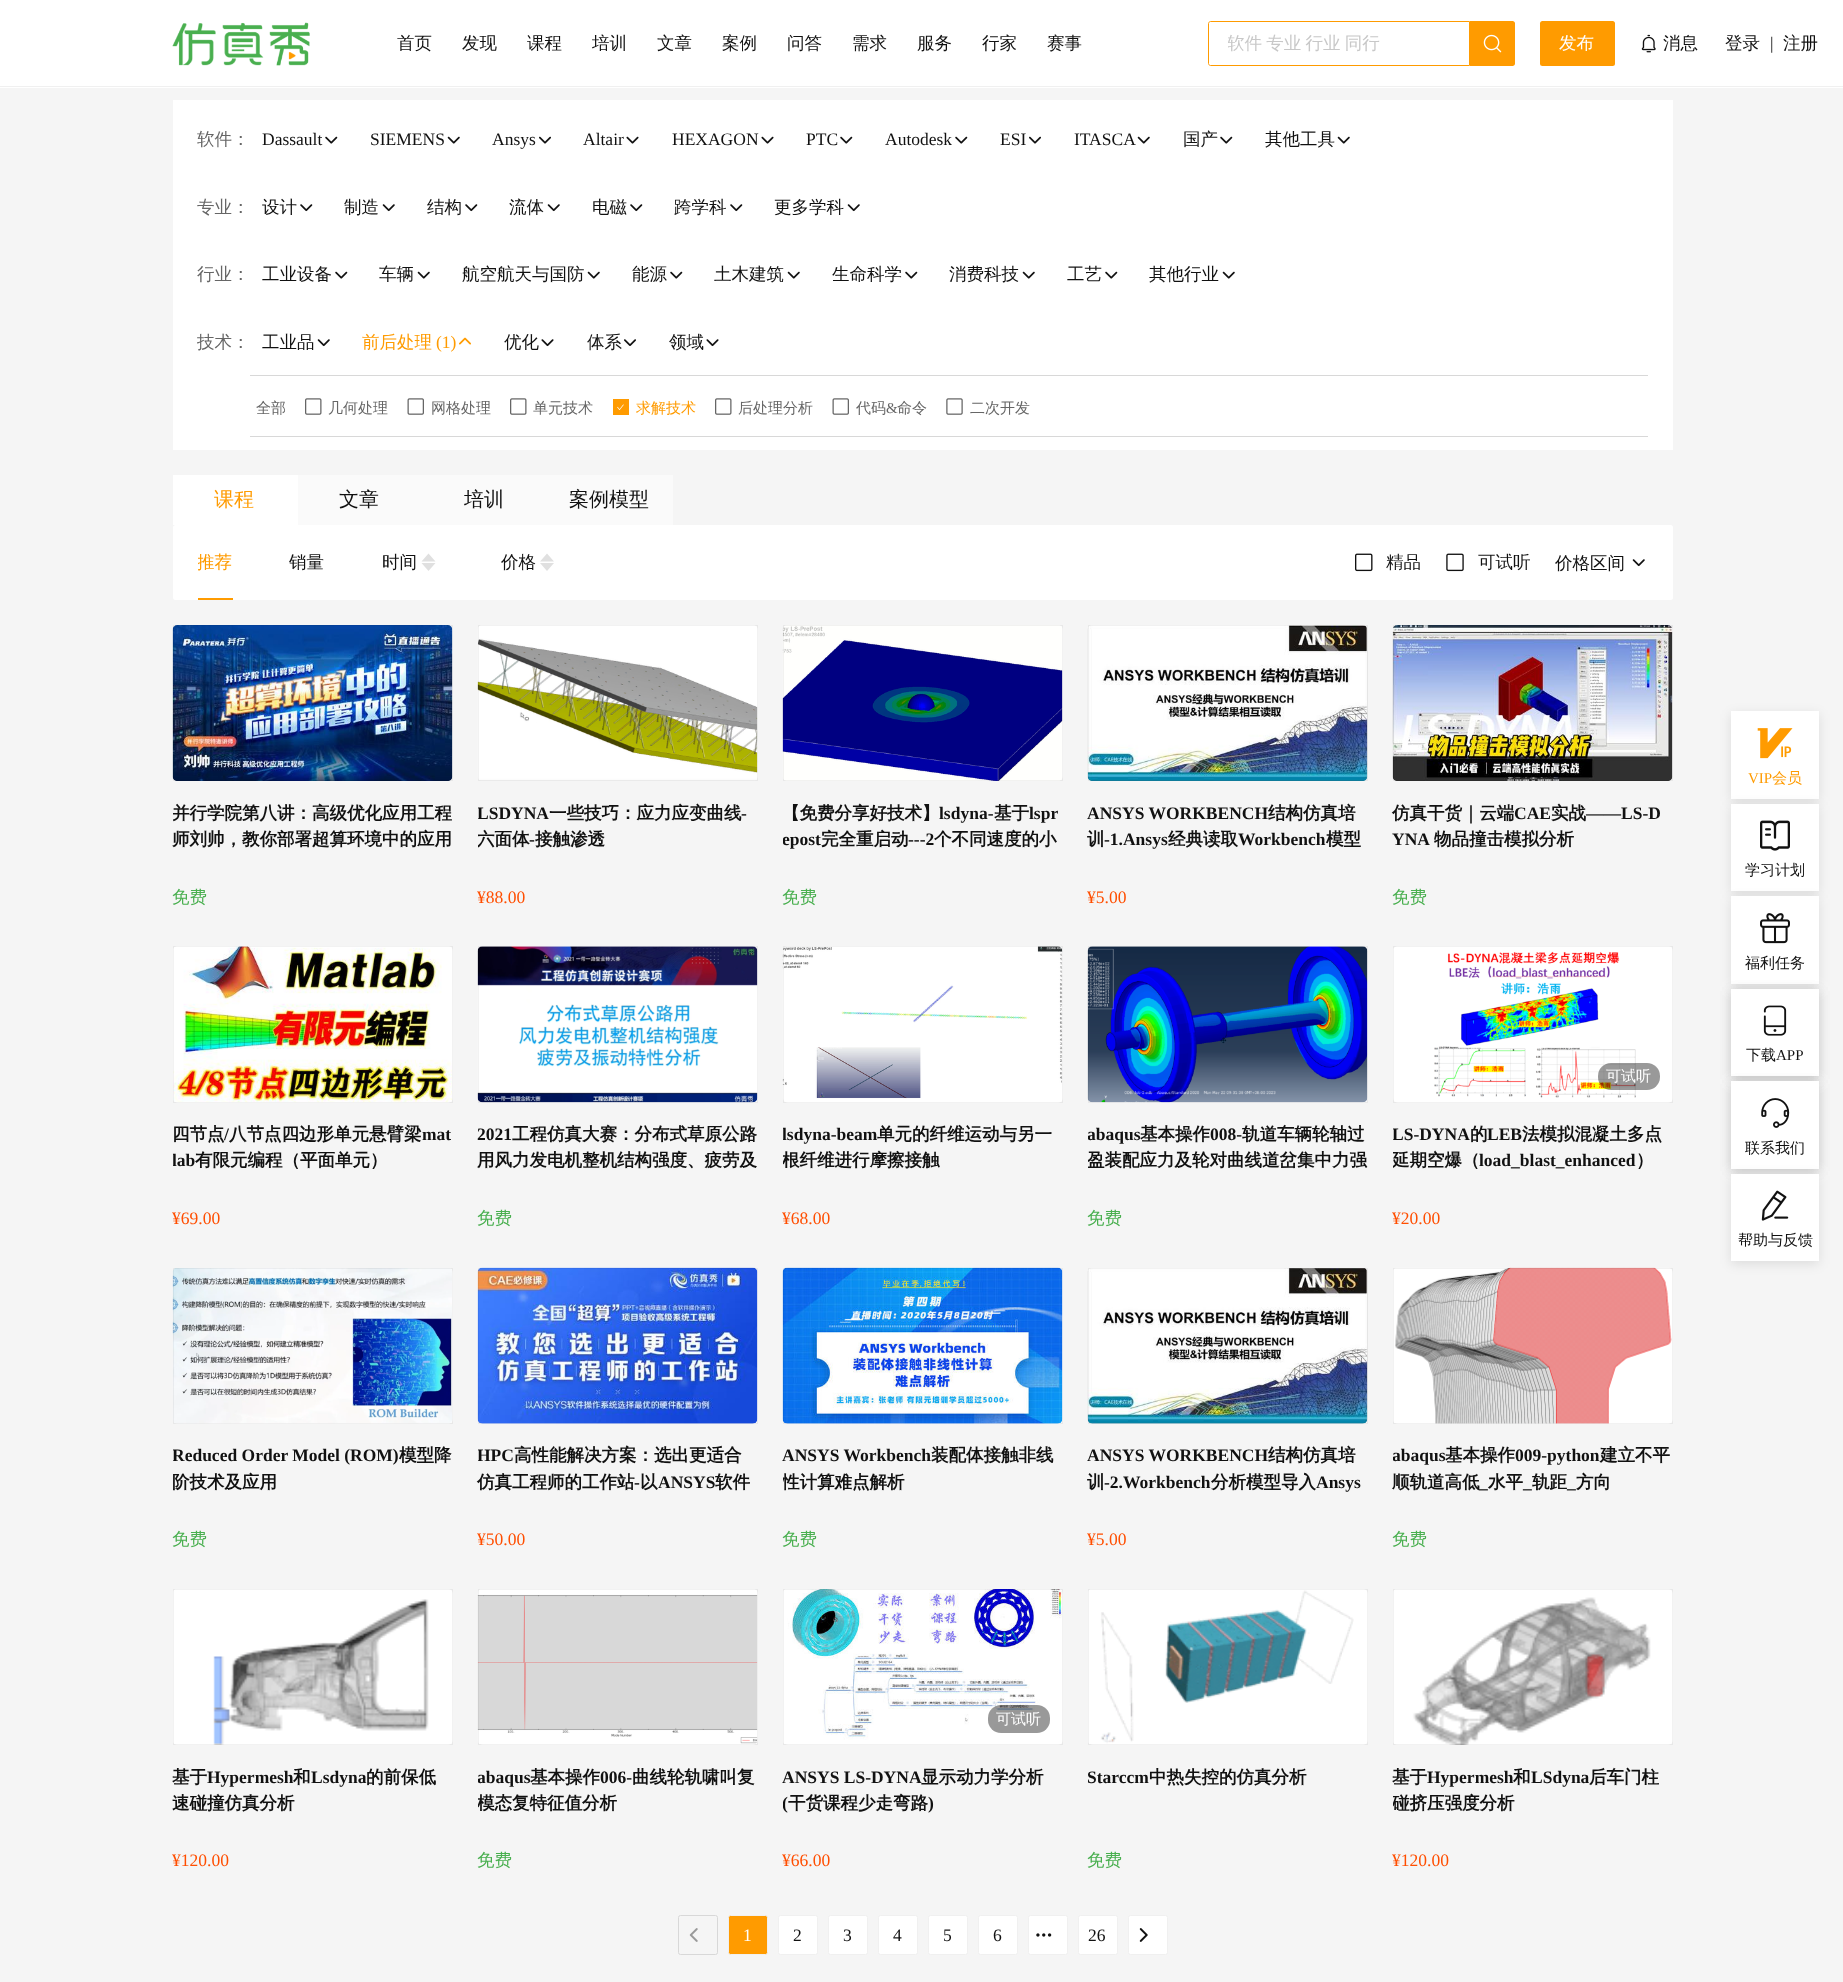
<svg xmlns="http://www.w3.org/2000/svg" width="1843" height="1982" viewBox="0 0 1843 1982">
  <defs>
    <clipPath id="clip1"><rect x="1228" y="33" width="222" height="22"/></clipPath>
    <clipPath id="clip2"><rect x="198" y="525" width="1132" height="75"/></clipPath>
    <clipPath id="clip3"><rect x="173" y="800" width="280" height="53"/></clipPath>
    <clipPath id="clip4"><rect x="478" y="800" width="280" height="53"/></clipPath>
    <clipPath id="clip5"><rect x="783" y="800" width="280" height="53"/></clipPath>
    <clipPath id="clip6"><rect x="173" y="1121" width="280" height="53"/></clipPath>
    <clipPath id="clip7"><rect x="783" y="1121" width="280" height="53"/></clipPath>
    <clipPath id="clip8"><rect x="1088" y="1121" width="280" height="53"/></clipPath>
    <clipPath id="clip9"><rect x="1393" y="1121" width="280" height="53"/></clipPath>
    <clipPath id="clip10"><rect x="173" y="1443" width="280" height="52"/></clipPath>
    <clipPath id="clip11"><rect x="478" y="1443" width="280" height="52"/></clipPath>
    <clipPath id="clip12"><rect x="783" y="1443" width="280" height="52"/></clipPath>
    <clipPath id="clip13"><rect x="1393" y="1443" width="280" height="52"/></clipPath>
    <clipPath id="clip14"><rect x="478" y="1764" width="280" height="52"/></clipPath>
    <clipPath id="clip15"><rect x="783" y="1764" width="280" height="52"/></clipPath>
    <clipPath id="clip16"><rect x="1088" y="1764" width="280" height="26"/></clipPath>
    <clipPath id="clip17"><rect x="1393" y="1764" width="280" height="52"/></clipPath>
  </defs>
  <rect width="100%" height="100%" fill="rgb(255,255,255)"/>
  <rect x="0" y="86" width="1843" height="1" fill="rgb(240,240,240)"/>
  <image x="172" y="22" width="138" height="44" href="pic1.png"/>
  <g font-family="WenQuanYi Zen Hei" font-size="17.5" font-weight="500" fill="rgb(17,17,17)">
    <text x="397" y="49">首页</text>
    <text x="462" y="49">发现</text>
    <text x="527" y="49">课程</text>
    <text x="592" y="49">培训</text>
    <text x="657" y="49">文章</text>
    <text x="722" y="49">案例</text>
    <text x="787" y="49">问答</text>
    <text x="852" y="49">需求</text>
    <text x="917" y="49">服务</text>
    <text x="982" y="49">行家</text>
    <text x="1047" y="49">赛事</text>
  </g>
  <path d="M1210.5 21.5H1469.5V65.5H1210.5C1209.5 65.5 1208.5 64.5 1208.5 63.5V23.5C1208.5 22.5 1209.5 21.5 1210.5 21.5Z" fill="none" stroke="rgb(255,155,0)"/>
  <g clip-path="url(#clip1)">
    <text x="1227" y="49" word-spacing="-1" font-family="WenQuanYi Zen Hei" font-size="17.5" font-weight="500" fill="rgb(200,200,200)">软件 专业 行业 同行</text>
  </g>
  <path d="M1470 21H1512.5C1514 21 1515 22 1515 23.5V63.5C1515 65 1514 66 1512.5 66H1470Z" fill="rgb(255,155,0)"/>
  <image x="1483" y="34" width="19" height="19" href="pic2.png"/>
  <rect x="1540" y="21" width="75" height="45" rx="2.5" fill="rgb(255,155,0)"/>
  <text x="1559" y="49" font-family="WenQuanYi Zen Hei" font-size="17.5" font-weight="500" fill="rgb(255,255,255)">发布</text>
  <image x="1641" y="34" width="15" height="19" href="pic3.png"/>
  <g font-family="WenQuanYi Zen Hei" font-size="17.5" font-weight="500" fill="rgb(17,17,17)">
    <text x="1663" y="49">消息</text>
    <text x="1725" y="49">登录</text>
  </g>
  <text x="1770" y="49" font-family="Liberation Serif" font-size="17.5" fill="rgb(17,17,17)">|</text>
  <text x="1783" y="49" font-family="WenQuanYi Zen Hei" font-size="17.5" font-weight="500" fill="rgb(17,17,17)">注册</text>
  <rect x="0" y="88" width="1843" height="1894" fill="rgb(245,245,245)"/>
  <rect x="173" y="100" width="1500" height="350" fill="rgb(255,255,255)"/>
  <text x="197" y="145" font-family="WenQuanYi Zen Hei" font-size="17.5" font-weight="500" fill="rgb(102,102,102)">软件：</text>
  <text x="262" y="145" font-family="Liberation Serif" font-size="17.5" fill="rgb(17,17,17)">Dassault</text>
  <image x="325" y="136" width="13" height="8" href="pic4.png"/>
  <text x="370" y="145" font-family="Liberation Serif" font-size="17.5" fill="rgb(17,17,17)">SIEMENS</text>
  <image x="447" y="136" width="13" height="8" href="pic5.png"/>
  <text x="492" y="145" font-family="Liberation Serif" font-size="17.5" fill="rgb(17,17,17)">Ansys</text>
  <image x="539" y="136" width="12" height="8" href="pic6.png"/>
  <text x="583" y="145" font-family="Liberation Serif" font-size="17.5" fill="rgb(17,17,17)">Altair</text>
  <image x="626" y="136" width="13" height="8" href="pic7.png"/>
  <text x="672" y="145" font-family="Liberation Serif" font-size="17.5" fill="rgb(17,17,17)">HEXAGON</text>
  <image x="761" y="136" width="13" height="8" href="pic7.png"/>
  <text x="806" y="145" font-family="Liberation Serif" font-size="17.5" fill="rgb(17,17,17)">PTC</text>
  <image x="840" y="136" width="13" height="8" href="pic4.png"/>
  <text x="885" y="145" font-family="Liberation Serif" font-size="17.5" fill="rgb(17,17,17)">Autodesk</text>
  <image x="955" y="136" width="13" height="8" href="pic4.png"/>
  <text x="1000" y="145" font-family="Liberation Serif" font-size="17.5" fill="rgb(17,17,17)">ESI</text>
  <image x="1029" y="136" width="12" height="8" href="pic6.png"/>
  <text x="1074" y="145" font-family="Liberation Serif" font-size="17.5" fill="rgb(17,17,17)">ITASCA</text>
  <image x="1137" y="136" width="13" height="8" href="pic5.png"/>
  <text x="1183" y="145" font-family="WenQuanYi Zen Hei" font-size="17.5" font-weight="500" fill="rgb(17,17,17)">国产</text>
  <image x="1220" y="136" width="13" height="8" href="pic4.png"/>
  <text x="1265" y="145" font-family="WenQuanYi Zen Hei" font-size="17.5" font-weight="500" fill="rgb(17,17,17)">其他工具</text>
  <image x="1337" y="136" width="13" height="8" href="pic5.png"/>
  <text x="197" y="213" font-family="WenQuanYi Zen Hei" font-size="17.5" font-weight="500" fill="rgb(102,102,102)">专业：</text>
  <text x="262" y="213" font-family="WenQuanYi Zen Hei" font-size="17.5" font-weight="500" fill="rgb(17,17,17)">设计</text>
  <image x="300" y="204" width="13" height="8" href="pic8.png"/>
  <text x="344" y="213" font-family="WenQuanYi Zen Hei" font-size="17.5" font-weight="500" fill="rgb(17,17,17)">制造</text>
  <image x="382" y="204" width="13" height="8" href="pic9.png"/>
  <text x="427" y="213" font-family="WenQuanYi Zen Hei" font-size="17.5" font-weight="500" fill="rgb(17,17,17)">结构</text>
  <image x="465" y="204" width="13" height="8" href="pic8.png"/>
  <text x="509" y="213" font-family="WenQuanYi Zen Hei" font-size="17.5" font-weight="500" fill="rgb(17,17,17)">流体</text>
  <image x="547" y="204" width="13" height="8" href="pic9.png"/>
  <text x="592" y="213" font-family="WenQuanYi Zen Hei" font-size="17.5" font-weight="500" fill="rgb(17,17,17)">电磁</text>
  <image x="630" y="204" width="13" height="8" href="pic8.png"/>
  <text x="674" y="213" font-family="WenQuanYi Zen Hei" font-size="17.5" font-weight="500" fill="rgb(17,17,17)">跨学科</text>
  <image x="730" y="204" width="13" height="8" href="pic8.png"/>
  <text x="774" y="213" font-family="WenQuanYi Zen Hei" font-size="17.5" font-weight="500" fill="rgb(17,17,17)">更多学科</text>
  <image x="847" y="204" width="13" height="8" href="pic9.png"/>
  <text x="197" y="280" font-family="WenQuanYi Zen Hei" font-size="17.5" font-weight="500" fill="rgb(102,102,102)">行业：</text>
  <text x="262" y="280" font-family="WenQuanYi Zen Hei" font-size="17.5" font-weight="500" fill="rgb(17,17,17)">工业设备</text>
  <image x="335" y="271" width="13" height="8" href="pic4.png"/>
  <text x="379" y="280" font-family="WenQuanYi Zen Hei" font-size="17.5" font-weight="500" fill="rgb(17,17,17)">车辆</text>
  <image x="417" y="271" width="13" height="8" href="pic5.png"/>
  <text x="462" y="280" font-family="WenQuanYi Zen Hei" font-size="17.5" font-weight="500" fill="rgb(17,17,17)">航空航天与国防</text>
  <image x="587" y="271" width="13" height="8" href="pic5.png"/>
  <text x="632" y="280" font-family="WenQuanYi Zen Hei" font-size="17.5" font-weight="500" fill="rgb(17,17,17)">能源</text>
  <image x="670" y="271" width="13" height="8" href="pic4.png"/>
  <text x="714" y="280" font-family="WenQuanYi Zen Hei" font-size="17.5" font-weight="500" fill="rgb(17,17,17)">土木建筑</text>
  <image x="787" y="271" width="13" height="8" href="pic5.png"/>
  <text x="832" y="280" font-family="WenQuanYi Zen Hei" font-size="17.5" font-weight="500" fill="rgb(17,17,17)">生命科学</text>
  <image x="905" y="271" width="13" height="8" href="pic4.png"/>
  <text x="949" y="280" font-family="WenQuanYi Zen Hei" font-size="17.5" font-weight="500" fill="rgb(17,17,17)">消费科技</text>
  <image x="1022" y="271" width="13" height="8" href="pic5.png"/>
  <text x="1067" y="280" font-family="WenQuanYi Zen Hei" font-size="17.5" font-weight="500" fill="rgb(17,17,17)">工艺</text>
  <image x="1105" y="271" width="13" height="8" href="pic4.png"/>
  <text x="1149" y="280" font-family="WenQuanYi Zen Hei" font-size="17.5" font-weight="500" fill="rgb(17,17,17)">其他行业</text>
  <image x="1222" y="271" width="13" height="8" href="pic5.png"/>
  <text x="197" y="348" font-family="WenQuanYi Zen Hei" font-size="17.5" font-weight="500" fill="rgb(102,102,102)">技术：</text>
  <text x="262" y="348" font-family="WenQuanYi Zen Hei" font-size="17.5" font-weight="500" fill="rgb(17,17,17)">工业品</text>
  <image x="317" y="339" width="13" height="8" href="pic9.png"/>
  <text x="362" y="348" font-family="WenQuanYi Zen Hei" font-size="17.5" font-weight="500" fill="rgb(255,155,0)">前后处理</text>
  <text x="436" y="348" font-family="Liberation Serif" font-size="17.5" fill="rgb(255,155,0)">(1)</text>
  <image x="459" y="337" width="12" height="8" href="pic10.png"/>
  <text x="504" y="348" font-family="WenQuanYi Zen Hei" font-size="17.5" font-weight="500" fill="rgb(17,17,17)">优化</text>
  <image x="541" y="339" width="13" height="8" href="pic11.png"/>
  <text x="587" y="348" font-family="WenQuanYi Zen Hei" font-size="17.5" font-weight="500" fill="rgb(17,17,17)">体系</text>
  <image x="624" y="339" width="12" height="7" href="pic12.png"/>
  <text x="669" y="348" font-family="WenQuanYi Zen Hei" font-size="17.5" font-weight="500" fill="rgb(17,17,17)">领域</text>
  <image x="706" y="339" width="13" height="8" href="pic11.png"/>
  <rect x="250" y="375" width="1398" height="1" fill="rgb(216,216,216)"/>
  <rect x="250" y="436" width="1398" height="1" fill="rgb(216,216,216)"/>
  <text x="256" y="413" font-family="WenQuanYi Zen Hei" font-size="15" font-weight="500" fill="rgb(102,102,102)">全部</text>
  <image x="305" y="398" width="17" height="17" href="pic13.png"/>
  <text x="328" y="413" font-family="WenQuanYi Zen Hei" font-size="15" font-weight="500" fill="rgb(102,102,102)">几何处理</text>
  <image x="407" y="398" width="17" height="17" href="pic14.png"/>
  <text x="431" y="413" font-family="WenQuanYi Zen Hei" font-size="15" font-weight="500" fill="rgb(102,102,102)">网格处理</text>
  <image x="510" y="398" width="17" height="17" href="pic13.png"/>
  <text x="533" y="413" font-family="WenQuanYi Zen Hei" font-size="15" font-weight="500" fill="rgb(102,102,102)">单元技术</text>
  <rect x="613" y="399" width="16" height="16" fill="rgb(255,155,0)"/>
  <image x="617" y="404" width="7" height="6" href="pic15.png"/>
  <text x="636" y="413" font-family="WenQuanYi Zen Hei" font-size="15" font-weight="500" fill="rgb(255,155,0)">求解技术</text>
  <image x="715" y="398" width="17" height="17" href="pic13.png"/>
  <text x="738" y="413" font-family="WenQuanYi Zen Hei" font-size="15" font-weight="500" fill="rgb(102,102,102)">后处理分析</text>
  <image x="832" y="398" width="17" height="17" href="pic14.png"/>
  <text x="856" y="413" font-family="WenQuanYi Zen Hei" font-size="15" font-weight="500" fill="rgb(102,102,102)">代码</text>
  <text x="886" y="413" font-family="Liberation Serif" font-size="15" fill="rgb(102,102,102)">&amp;</text>
  <text x="897" y="413" font-family="WenQuanYi Zen Hei" font-size="15" font-weight="500" fill="rgb(102,102,102)">命令</text>
  <image x="946" y="398" width="17" height="17" href="pic16.png"/>
  <text x="970" y="413" font-family="WenQuanYi Zen Hei" font-size="15" font-weight="500" fill="rgb(102,102,102)">二次开发</text>
  <rect x="173" y="475" width="125" height="50" fill="rgb(255,255,255)"/>
  <text x="214" y="506" font-family="WenQuanYi Zen Hei" font-size="20" font-weight="500" fill="rgb(255,155,0)">课程</text>
  <rect x="298" y="475" width="375" height="50" fill="rgb(250,250,250)"/>
  <g font-family="WenQuanYi Zen Hei" font-size="20" font-weight="500" fill="rgb(17,17,17)">
    <text x="339" y="506">文章</text>
    <text x="464" y="506">培训</text>
    <text x="569" y="506">案例模型</text>
  </g>
  <rect x="173" y="525" width="1500" height="75" rx="2.5" fill="rgb(255,255,255)"/>
  <g clip-path="url(#clip2)">
    <text x="197" y="568" font-family="WenQuanYi Zen Hei" font-size="17.5" font-weight="500" fill="rgb(255,155,0)">推荐</text>
  </g>
  <g font-family="WenQuanYi Zen Hei" font-size="17.5" font-weight="500" fill="rgb(17,17,17)">
    <text x="289" y="568">销量</text>
    <text x="382" y="568">时间</text>
  </g>
  <path d="M435.5 561.5L428.5 553.5L421.5 561.5ZM435.5 563L428.5 571L421.5 563Z" fill="rgb(224,224,224)"/>
  <text x="501" y="568" font-family="WenQuanYi Zen Hei" font-size="17.5" font-weight="500" fill="rgb(17,17,17)">价格</text>
  <path d="M554 561.5L547 553.5L540 561.5ZM554 563L547 571L540 563Z" fill="rgb(224,224,224)"/>
  <rect x="198" y="598" width="35" height="2" fill="rgb(255,155,0)"/>
  <image x="1355" y="553" width="18" height="19" href="pic17.png"/>
  <text x="1386" y="568" font-family="WenQuanYi Zen Hei" font-size="17.5" font-weight="500" fill="rgb(17,17,17)">精品</text>
  <image x="1446" y="553" width="18" height="19" href="pic18.png"/>
  <g font-family="WenQuanYi Zen Hei" font-size="17.5" font-weight="500" fill="rgb(17,17,17)">
    <text x="1478" y="568">可试听</text>
    <text x="1555" y="569">价格区间</text>
  </g>
  <image x="1632" y="559" width="13" height="8" href="pic9.png"/>
  <rect x="173" y="625" width="280" height="156" rx="5" fill="rgb(255,255,255)"/>
  <image x="172" y="625" width="281" height="156" href="pic19.png"/>
  <rect x="173.5" y="625.5" width="279" height="155" fill="none" stroke="rgba(0,0,0,0.05)"/>
  <g clip-path="url(#clip3)">
    <text x="172" y="819" font-family="WenQuanYi Zen Hei" font-size="17.5" font-weight="bold" fill="rgb(17,17,17)">并行学院第八讲：高级优化应用工程</text>
  </g>
  <text x="172" y="845" font-family="WenQuanYi Zen Hei" font-size="17.5" font-weight="bold" fill="rgb(17,17,17)">师刘帅，教你部署超算环境中的应用</text>
  <text x="172" y="903" font-family="WenQuanYi Zen Hei" font-size="17.5" font-weight="500" fill="rgb(73,175,79)">免费</text>
  <rect x="478" y="625" width="280" height="156" rx="5" fill="rgb(255,255,255)"/>
  <image x="477" y="625" width="281" height="156" href="pic20.png"/>
  <rect x="478.5" y="625.5" width="279" height="155" fill="none" stroke="rgba(0,0,0,0.05)"/>
  <g clip-path="url(#clip4)">
    <text x="477" y="819" font-family="Liberation Serif" font-size="17.5" font-weight="bold" fill="rgb(17,17,17)">LSDYNA</text>
  </g>
  <text x="549" y="819" font-family="WenQuanYi Zen Hei" font-size="17.5" font-weight="bold" fill="rgb(17,17,17)">一些技巧：应力应变曲线</text>
  <text x="741" y="819" font-family="Liberation Serif" font-size="17.5" font-weight="bold" fill="rgb(17,17,17)">-</text>
  <g clip-path="url(#clip4)">
    <text x="477" y="845" font-family="WenQuanYi Zen Hei" font-size="17.5" font-weight="bold" fill="rgb(17,17,17)">六面体</text>
  </g>
  <text x="529" y="845" font-family="Liberation Serif" font-size="17.5" font-weight="bold" fill="rgb(17,17,17)">-</text>
  <text x="535" y="845" font-family="WenQuanYi Zen Hei" font-size="17.5" font-weight="bold" fill="rgb(17,17,17)">接触渗透</text>
  <text x="477" y="903" font-family="Liberation Serif" font-size="17.5" fill="rgb(255,78,0)">¥88.00</text>
  <rect x="783" y="625" width="280" height="156" rx="5" fill="rgb(255,255,255)"/>
  <image x="782" y="625" width="281" height="156" href="pic21.png"/>
  <rect x="783.5" y="625.5" width="279" height="155" fill="none" stroke="rgba(0,0,0,0.05)"/>
  <text x="782" y="819" font-family="WenQuanYi Zen Hei" font-size="17.5" font-weight="bold" fill="rgb(17,17,17)">【免费分享好技术】</text>
  <text x="939" y="819" font-family="Liberation Serif" font-size="17.5" font-weight="bold" fill="rgb(17,17,17)">lsdyna-</text>
  <text x="994" y="819" font-family="WenQuanYi Zen Hei" font-size="17.5" font-weight="bold" fill="rgb(17,17,17)">基于</text>
  <text x="1029" y="819" font-family="Liberation Serif" font-size="17.5" font-weight="bold" fill="rgb(17,17,17)">lspr</text>
  <g clip-path="url(#clip5)">
    <text x="782" y="845" font-family="Liberation Serif" font-size="17.5" font-weight="bold" fill="rgb(17,17,17)">epost</text>
  </g>
  <text x="821" y="845" font-family="WenQuanYi Zen Hei" font-size="17.5" font-weight="bold" fill="rgb(17,17,17)">完全重启动</text>
  <text x="908" y="845" font-family="Liberation Serif" font-size="17.5" font-weight="bold" fill="rgb(17,17,17)">---2</text>
  <text x="934" y="845" font-family="WenQuanYi Zen Hei" font-size="17.5" font-weight="bold" fill="rgb(17,17,17)">个不同速度的小</text>
  <text x="782" y="903" font-family="WenQuanYi Zen Hei" font-size="17.5" font-weight="500" fill="rgb(73,175,79)">免费</text>
  <rect x="1088" y="625" width="280" height="156" rx="5" fill="rgb(255,255,255)"/>
  <image x="1087" y="625" width="281" height="156" href="pic22.png"/>
  <rect x="1088.5" y="625.5" width="279" height="155" fill="none" stroke="rgba(0,0,0,0.05)"/>
  <text x="1087" y="819" font-family="Liberation Serif" font-size="17.5" font-weight="bold" fill="rgb(17,17,17)">ANSYS WORKBENCH</text>
  <g font-family="WenQuanYi Zen Hei" font-size="17.5" font-weight="bold" fill="rgb(17,17,17)">
    <text x="1268" y="819">结构仿真培</text>
    <text x="1087" y="845">训</text>
  </g>
  <text x="1104" y="845" font-family="Liberation Serif" font-size="17.5" font-weight="bold" fill="rgb(17,17,17)">-1.Ansys</text>
  <text x="1168" y="845" font-family="WenQuanYi Zen Hei" font-size="17.5" font-weight="bold" fill="rgb(17,17,17)">经典读取</text>
  <text x="1238" y="845" font-family="Liberation Serif" font-size="17.5" font-weight="bold" fill="rgb(17,17,17)">Workbench</text>
  <text x="1326" y="845" font-family="WenQuanYi Zen Hei" font-size="17.5" font-weight="bold" fill="rgb(17,17,17)">模型</text>
  <text x="1087" y="903" font-family="Liberation Serif" font-size="17.5" fill="rgb(255,78,0)">¥5.00</text>
  <rect x="1393" y="625" width="280" height="156" rx="5" fill="rgb(255,255,255)"/>
  <image x="1392" y="625" width="281" height="156" href="pic23.png"/>
  <rect x="1393.5" y="625.5" width="279" height="155" fill="none" stroke="rgba(0,0,0,0.05)"/>
  <text x="1392" y="819" font-family="WenQuanYi Zen Hei" font-size="17.5" font-weight="bold" fill="rgb(17,17,17)">仿真干货｜云端</text>
  <text x="1514" y="819" font-family="Liberation Serif" font-size="17.5" font-weight="bold" fill="rgb(17,17,17)">CAE</text>
  <text x="1551" y="819" font-family="WenQuanYi Zen Hei" font-size="17.5" font-weight="bold" fill="rgb(17,17,17)">实战</text>
  <g font-family="Liberation Serif" font-size="17.5" font-weight="bold" fill="rgb(17,17,17)">
    <text x="1586" y="819">——LS-D</text>
    <text x="1392" y="845">YNA</text>
  </g>
  <text x="1434" y="845" font-family="WenQuanYi Zen Hei" font-size="17.5" font-weight="bold" fill="rgb(17,17,17)">物品撞击模拟分析</text>
  <text x="1392" y="903" font-family="WenQuanYi Zen Hei" font-size="17.5" font-weight="500" fill="rgb(73,175,79)">免费</text>
  <rect x="173" y="946" width="280" height="157" rx="5" fill="rgb(255,255,255)"/>
  <image x="173" y="946" width="279" height="157" href="pic24.png"/>
  <rect x="173.5" y="946.5" width="279" height="156" fill="none" stroke="rgba(0,0,0,0.05)"/>
  <text x="172" y="1140" font-family="WenQuanYi Zen Hei" font-size="17.5" font-weight="bold" fill="rgb(17,17,17)">四节点</text>
  <text x="224" y="1140" font-family="Liberation Serif" font-size="17.5" font-weight="bold" fill="rgb(17,17,17)">/</text>
  <text x="229" y="1140" font-family="WenQuanYi Zen Hei" font-size="17.5" font-weight="bold" fill="rgb(17,17,17)">八节点四边形单元悬臂梁</text>
  <text x="422" y="1140" font-family="Liberation Serif" font-size="17.5" font-weight="bold" fill="rgb(17,17,17)">mat</text>
  <g clip-path="url(#clip6)">
    <text x="172" y="1166" font-family="Liberation Serif" font-size="17.5" font-weight="bold" fill="rgb(17,17,17)">lab</text>
  </g>
  <text x="195" y="1166" font-family="WenQuanYi Zen Hei" font-size="17.5" font-weight="bold" fill="rgb(17,17,17)">有限元编程（平面单元）</text>
  <text x="172" y="1224" font-family="Liberation Serif" font-size="17.5" fill="rgb(255,78,0)">¥69.00</text>
  <rect x="478" y="946" width="280" height="157" rx="5" fill="rgb(255,255,255)"/>
  <image x="477" y="946" width="281" height="157" href="pic25.png"/>
  <rect x="478.5" y="946.5" width="279" height="156" fill="none" stroke="rgba(0,0,0,0.05)"/>
  <text x="477" y="1140" font-family="Liberation Serif" font-size="17.5" font-weight="bold" fill="rgb(17,17,17)">2021</text>
  <g font-family="WenQuanYi Zen Hei" font-size="17.5" font-weight="bold" fill="rgb(17,17,17)">
    <text x="512" y="1140">工程仿真大赛：分布式草原公路</text>
    <text x="477" y="1166">用风力发电机整机结构强度、疲劳及</text>
  </g>
  <text x="477" y="1224" font-family="WenQuanYi Zen Hei" font-size="17.5" font-weight="500" fill="rgb(73,175,79)">免费</text>
  <rect x="783" y="946" width="280" height="157" rx="5" fill="rgb(255,255,255)"/>
  <image x="782" y="946" width="281" height="153" href="pic26.png"/>
  <rect x="783.5" y="946.5" width="279" height="156" fill="none" stroke="rgba(0,0,0,0.05)"/>
  <g clip-path="url(#clip7)">
    <text x="782" y="1140" font-family="Liberation Serif" font-size="17.5" font-weight="bold" fill="rgb(17,17,17)">lsdyna-beam</text>
  </g>
  <text x="877" y="1140" font-family="WenQuanYi Zen Hei" font-size="17.5" font-weight="bold" fill="rgb(17,17,17)">单元的纤维运动与另一</text>
  <g clip-path="url(#clip7)">
    <text x="782" y="1166" font-family="WenQuanYi Zen Hei" font-size="17.5" font-weight="bold" fill="rgb(17,17,17)">根纤维进行摩擦接触</text>
  </g>
  <text x="782" y="1224" font-family="Liberation Serif" font-size="17.5" fill="rgb(255,78,0)">¥68.00</text>
  <rect x="1088" y="946" width="280" height="157" rx="5" fill="rgb(255,255,255)"/>
  <image x="1087" y="946" width="281" height="157" href="pic27.png"/>
  <rect x="1088.5" y="946.5" width="279" height="156" fill="none" stroke="rgba(0,0,0,0.05)"/>
  <g clip-path="url(#clip8)">
    <text x="1087" y="1140" font-family="Liberation Serif" font-size="17.5" font-weight="bold" fill="rgb(17,17,17)">abaqus</text>
  </g>
  <text x="1140" y="1140" font-family="WenQuanYi Zen Hei" font-size="17.5" font-weight="bold" fill="rgb(17,17,17)">基本操作</text>
  <text x="1210" y="1140" font-family="Liberation Serif" font-size="17.5" font-weight="bold" fill="rgb(17,17,17)">008-</text>
  <text x="1242" y="1140" font-family="WenQuanYi Zen Hei" font-size="17.5" font-weight="bold" fill="rgb(17,17,17)">轨道车辆轮轴过</text>
  <g clip-path="url(#clip8)">
    <text x="1087" y="1166" font-family="WenQuanYi Zen Hei" font-size="17.5" font-weight="bold" fill="rgb(17,17,17)">盈装配应力及轮对曲线道岔集中力强</text>
  </g>
  <text x="1087" y="1224" font-family="WenQuanYi Zen Hei" font-size="17.5" font-weight="500" fill="rgb(73,175,79)">免费</text>
  <rect x="1393" y="946" width="280" height="157" rx="5" fill="rgb(255,255,255)"/>
  <image x="1393" y="948" width="243" height="150" href="pic28.png"/>
  <rect x="1393.5" y="946.5" width="279" height="156" fill="none" stroke="rgba(0,0,0,0.05)"/>
  <rect x="1598" y="1063" width="62" height="27" rx="13" fill="rgba(0,0,0,0.4)"/>
  <text x="1606" y="1081" font-family="WenQuanYi Zen Hei" font-size="15" font-weight="500" fill="rgb(255,255,255)">可试听</text>
  <g clip-path="url(#clip9)">
    <text x="1392" y="1140" font-family="Liberation Serif" font-size="17.5" font-weight="bold" fill="rgb(17,17,17)">LS-DYNA</text>
  </g>
  <text x="1470" y="1140" font-family="WenQuanYi Zen Hei" font-size="17.5" font-weight="bold" fill="rgb(17,17,17)">的</text>
  <text x="1487" y="1140" font-family="Liberation Serif" font-size="17.5" font-weight="bold" fill="rgb(17,17,17)">LEB</text>
  <text x="1522" y="1140" font-family="WenQuanYi Zen Hei" font-size="17.5" font-weight="bold" fill="rgb(17,17,17)">法模拟混凝土多点</text>
  <g clip-path="url(#clip9)">
    <text x="1392" y="1166" font-family="WenQuanYi Zen Hei" font-size="17.5" font-weight="bold" fill="rgb(17,17,17)">延期空爆（</text>
  </g>
  <text x="1479" y="1166" font-family="Liberation Serif" font-size="17.5" font-weight="bold" fill="rgb(17,17,17)">load_blast_enhanced</text>
  <text x="1636" y="1166" font-family="WenQuanYi Zen Hei" font-size="17.5" font-weight="bold" fill="rgb(17,17,17)">）</text>
  <text x="1392" y="1224" font-family="Liberation Serif" font-size="17.5" fill="rgb(255,78,0)">¥20.00</text>
  <rect x="173" y="1268" width="280" height="156" rx="5" fill="rgb(255,255,255)"/>
  <image x="172" y="1268" width="280" height="156" href="pic29.png"/>
  <rect x="173.5" y="1268.5" width="279" height="155" fill="none" stroke="rgba(0,0,0,0.05)"/>
  <g clip-path="url(#clip10)">
    <text x="172" y="1461" font-family="Liberation Serif" font-size="17.5" font-weight="bold" fill="rgb(17,17,17)">Reduced Order Model (ROM)</text>
  </g>
  <text x="399" y="1461" font-family="WenQuanYi Zen Hei" font-size="17.5" font-weight="bold" fill="rgb(17,17,17)">模型降</text>
  <g clip-path="url(#clip10)">
    <text x="172" y="1488" font-family="WenQuanYi Zen Hei" font-size="17.5" font-weight="bold" fill="rgb(17,17,17)">阶技术及应用</text>
  </g>
  <text x="172" y="1545" font-family="WenQuanYi Zen Hei" font-size="17.5" font-weight="500" fill="rgb(73,175,79)">免费</text>
  <rect x="478" y="1268" width="280" height="156" rx="5" fill="rgb(255,255,255)"/>
  <image x="477" y="1267" width="281" height="157" href="pic30.png"/>
  <rect x="478.5" y="1268.5" width="279" height="155" fill="none" stroke="rgba(0,0,0,0.05)"/>
  <g clip-path="url(#clip11)">
    <text x="477" y="1461" font-family="Liberation Serif" font-size="17.5" font-weight="bold" fill="rgb(17,17,17)">HPC</text>
  </g>
  <g font-family="WenQuanYi Zen Hei" font-size="17.5" font-weight="bold" fill="rgb(17,17,17)">
    <text x="514" y="1461">高性能解决方案：选出更适合</text>
    <text x="477" y="1488">仿真工程师的工作站</text>
  </g>
  <text x="634" y="1488" font-family="Liberation Serif" font-size="17.5" font-weight="bold" fill="rgb(17,17,17)">-</text>
  <text x="640" y="1488" font-family="WenQuanYi Zen Hei" font-size="17.5" font-weight="bold" fill="rgb(17,17,17)">以</text>
  <text x="658" y="1488" font-family="Liberation Serif" font-size="17.5" font-weight="bold" fill="rgb(17,17,17)">ANSYS</text>
  <text x="715" y="1488" font-family="WenQuanYi Zen Hei" font-size="17.5" font-weight="bold" fill="rgb(17,17,17)">软件</text>
  <text x="477" y="1545" font-family="Liberation Serif" font-size="17.5" fill="rgb(255,78,0)">¥50.00</text>
  <rect x="783" y="1268" width="280" height="156" rx="5" fill="rgb(255,255,255)"/>
  <image x="782" y="1267" width="281" height="157" href="pic31.png"/>
  <rect x="783.5" y="1268.5" width="279" height="155" fill="none" stroke="rgba(0,0,0,0.05)"/>
  <text x="782" y="1461" font-family="Liberation Serif" font-size="17.5" font-weight="bold" fill="rgb(17,17,17)">ANSYS Workbench</text>
  <text x="931" y="1461" font-family="WenQuanYi Zen Hei" font-size="17.5" font-weight="bold" fill="rgb(17,17,17)">装配体接触非线</text>
  <g clip-path="url(#clip12)">
    <text x="782" y="1488" font-family="WenQuanYi Zen Hei" font-size="17.5" font-weight="bold" fill="rgb(17,17,17)">性计算难点解析</text>
  </g>
  <text x="782" y="1545" font-family="WenQuanYi Zen Hei" font-size="17.5" font-weight="500" fill="rgb(73,175,79)">免费</text>
  <rect x="1088" y="1268" width="280" height="156" rx="5" fill="rgb(255,255,255)"/>
  <image x="1087" y="1268" width="281" height="156" href="pic32.png"/>
  <rect x="1088.5" y="1268.5" width="279" height="155" fill="none" stroke="rgba(0,0,0,0.05)"/>
  <text x="1087" y="1461" font-family="Liberation Serif" font-size="17.5" font-weight="bold" fill="rgb(17,17,17)">ANSYS WORKBENCH</text>
  <g font-family="WenQuanYi Zen Hei" font-size="17.5" font-weight="bold" fill="rgb(17,17,17)">
    <text x="1268" y="1461">结构仿真培</text>
    <text x="1087" y="1488">训</text>
  </g>
  <text x="1104" y="1488" font-family="Liberation Serif" font-size="17.5" font-weight="bold" fill="rgb(17,17,17)">-2.Workbench</text>
  <text x="1211" y="1488" font-family="WenQuanYi Zen Hei" font-size="17.5" font-weight="bold" fill="rgb(17,17,17)">分析模型导入</text>
  <text x="1316" y="1488" font-family="Liberation Serif" font-size="17.5" font-weight="bold" fill="rgb(17,17,17)">Ansys</text>
  <text x="1087" y="1545" font-family="Liberation Serif" font-size="17.5" fill="rgb(255,78,0)">¥5.00</text>
  <rect x="1393" y="1268" width="280" height="156" rx="5" fill="rgb(255,255,255)"/>
  <image x="1393" y="1267" width="279" height="157" href="pic33.png"/>
  <rect x="1393.5" y="1268.5" width="279" height="155" fill="none" stroke="rgba(0,0,0,0.05)"/>
  <g clip-path="url(#clip13)">
    <text x="1392" y="1461" font-family="Liberation Serif" font-size="17.5" font-weight="bold" fill="rgb(17,17,17)">abaqus</text>
  </g>
  <text x="1445" y="1461" font-family="WenQuanYi Zen Hei" font-size="17.5" font-weight="bold" fill="rgb(17,17,17)">基本操作</text>
  <text x="1515" y="1461" font-family="Liberation Serif" font-size="17.5" font-weight="bold" fill="rgb(17,17,17)">009-python</text>
  <g font-family="WenQuanYi Zen Hei" font-size="17.5" font-weight="bold" fill="rgb(17,17,17)">
    <text x="1600" y="1461">建立不平</text>
    <text x="1392" y="1488">顺轨道高低</text>
  </g>
  <text x="1479" y="1488" font-family="Liberation Serif" font-size="17.5" font-weight="bold" fill="rgb(17,17,17)">_</text>
  <text x="1488" y="1488" font-family="WenQuanYi Zen Hei" font-size="17.5" font-weight="bold" fill="rgb(17,17,17)">水平</text>
  <text x="1523" y="1488" font-family="Liberation Serif" font-size="17.5" font-weight="bold" fill="rgb(17,17,17)">_</text>
  <text x="1532" y="1488" font-family="WenQuanYi Zen Hei" font-size="17.5" font-weight="bold" fill="rgb(17,17,17)">轨距</text>
  <text x="1567" y="1488" font-family="Liberation Serif" font-size="17.5" font-weight="bold" fill="rgb(17,17,17)">_</text>
  <text x="1576" y="1488" font-family="WenQuanYi Zen Hei" font-size="17.5" font-weight="bold" fill="rgb(17,17,17)">方向</text>
  <text x="1392" y="1545" font-family="WenQuanYi Zen Hei" font-size="17.5" font-weight="500" fill="rgb(73,175,79)">免费</text>
  <rect x="173" y="1589" width="280" height="156" rx="5" fill="rgb(255,255,255)"/>
  <image x="173" y="1589" width="256" height="156" href="pic34.png"/>
  <rect x="173.5" y="1589.5" width="279" height="155" fill="none" stroke="rgba(0,0,0,0.05)"/>
  <text x="172" y="1783" font-family="WenQuanYi Zen Hei" font-size="17.5" font-weight="bold" fill="rgb(17,17,17)">基于</text>
  <text x="207" y="1783" font-family="Liberation Serif" font-size="17.5" font-weight="bold" fill="rgb(17,17,17)">Hypermesh</text>
  <text x="293" y="1783" font-family="WenQuanYi Zen Hei" font-size="17.5" font-weight="bold" fill="rgb(17,17,17)">和</text>
  <text x="311" y="1783" font-family="Liberation Serif" font-size="17.5" font-weight="bold" fill="rgb(17,17,17)">Lsdyna</text>
  <g font-family="WenQuanYi Zen Hei" font-size="17.5" font-weight="bold" fill="rgb(17,17,17)">
    <text x="366" y="1783">的前保低</text>
    <text x="172" y="1809">速碰撞仿真分析</text>
  </g>
  <text x="172" y="1866" font-family="Liberation Serif" font-size="17.5" fill="rgb(255,78,0)">¥120.00</text>
  <rect x="478" y="1589" width="280" height="156" rx="5" fill="rgb(255,255,255)"/>
  <image x="477" y="1589" width="281" height="155" href="pic35.png"/>
  <rect x="478.5" y="1589.5" width="279" height="155" fill="none" stroke="rgba(0,0,0,0.05)"/>
  <g clip-path="url(#clip14)">
    <text x="477" y="1783" font-family="Liberation Serif" font-size="17.5" font-weight="bold" fill="rgb(17,17,17)">abaqus</text>
  </g>
  <text x="530" y="1783" font-family="WenQuanYi Zen Hei" font-size="17.5" font-weight="bold" fill="rgb(17,17,17)">基本操作</text>
  <text x="600" y="1783" font-family="Liberation Serif" font-size="17.5" font-weight="bold" fill="rgb(17,17,17)">006-</text>
  <text x="632" y="1783" font-family="WenQuanYi Zen Hei" font-size="17.5" font-weight="bold" fill="rgb(17,17,17)">曲线轮轨啸叫复</text>
  <g clip-path="url(#clip14)">
    <text x="477" y="1809" font-family="WenQuanYi Zen Hei" font-size="17.5" font-weight="bold" fill="rgb(17,17,17)">模态复特征值分析</text>
  </g>
  <text x="477" y="1866" font-family="WenQuanYi Zen Hei" font-size="17.5" font-weight="500" fill="rgb(73,175,79)">免费</text>
  <rect x="783" y="1589" width="280" height="156" rx="5" fill="rgb(255,255,255)"/>
  <image x="783" y="1589" width="279" height="155" href="pic36.png"/>
  <rect x="783.5" y="1589.5" width="279" height="155" fill="none" stroke="rgba(0,0,0,0.05)"/>
  <rect x="988" y="1705" width="62" height="28" rx="13" fill="rgba(0,0,0,0.4)"/>
  <text x="996" y="1724" font-family="WenQuanYi Zen Hei" font-size="15" font-weight="500" fill="rgb(255,255,255)">可试听</text>
  <text x="782" y="1783" font-family="Liberation Serif" font-size="17.5" font-weight="bold" fill="rgb(17,17,17)">ANSYS LS-DYNA</text>
  <text x="921" y="1783" font-family="WenQuanYi Zen Hei" font-size="17.5" font-weight="bold" fill="rgb(17,17,17)">显示动力学分析</text>
  <g clip-path="url(#clip15)">
    <text x="782" y="1809" font-family="Liberation Serif" font-size="17.5" font-weight="bold" fill="rgb(17,17,17)">(</text>
  </g>
  <text x="788" y="1809" font-family="WenQuanYi Zen Hei" font-size="17.5" font-weight="bold" fill="rgb(17,17,17)">干货课程少走弯路</text>
  <text x="928" y="1809" font-family="Liberation Serif" font-size="17.5" font-weight="bold" fill="rgb(17,17,17)">)</text>
  <text x="782" y="1866" font-family="Liberation Serif" font-size="17.5" fill="rgb(255,78,0)">¥66.00</text>
  <rect x="1088" y="1589" width="280" height="156" rx="5" fill="rgb(255,255,255)"/>
  <image x="1088" y="1589" width="266" height="155" href="pic37.png"/>
  <rect x="1088.5" y="1589.5" width="279" height="155" fill="none" stroke="rgba(0,0,0,0.05)"/>
  <g clip-path="url(#clip16)">
    <text x="1087" y="1783" font-family="Liberation Serif" font-size="17.5" font-weight="bold" fill="rgb(17,17,17)">Starccm</text>
  </g>
  <text x="1149" y="1783" font-family="WenQuanYi Zen Hei" font-size="17.5" font-weight="bold" fill="rgb(17,17,17)">中热失控的仿真分析</text>
  <text x="1087" y="1866" font-family="WenQuanYi Zen Hei" font-size="17.5" font-weight="500" fill="rgb(73,175,79)">免费</text>
  <rect x="1393" y="1589" width="280" height="156" rx="5" fill="rgb(255,255,255)"/>
  <image x="1393" y="1589" width="258" height="156" href="pic38.png"/>
  <rect x="1393.5" y="1589.5" width="279" height="155" fill="none" stroke="rgba(0,0,0,0.05)"/>
  <text x="1392" y="1783" font-family="WenQuanYi Zen Hei" font-size="17.5" font-weight="bold" fill="rgb(17,17,17)">基于</text>
  <text x="1427" y="1783" font-family="Liberation Serif" font-size="17.5" font-weight="bold" fill="rgb(17,17,17)">Hypermesh</text>
  <text x="1513" y="1783" font-family="WenQuanYi Zen Hei" font-size="17.5" font-weight="bold" fill="rgb(17,17,17)">和</text>
  <text x="1531" y="1783" font-family="Liberation Serif" font-size="17.5" font-weight="bold" fill="rgb(17,17,17)">LSdyna</text>
  <text x="1589" y="1783" font-family="WenQuanYi Zen Hei" font-size="17.5" font-weight="bold" fill="rgb(17,17,17)">后车门柱</text>
  <g clip-path="url(#clip17)">
    <text x="1392" y="1809" font-family="WenQuanYi Zen Hei" font-size="17.5" font-weight="bold" fill="rgb(17,17,17)">碰挤压强度分析</text>
  </g>
  <text x="1392" y="1866" font-family="Liberation Serif" font-size="17.5" fill="rgb(255,78,0)">¥120.00</text>
  <rect x="678.5" y="1915.5" width="39" height="39" rx="2" fill="none" stroke="rgb(216,216,216)"/>
  <image x="689" y="1928" width="9" height="14" href="pic39.png"/>
  <rect x="728.5" y="1915.5" width="39" height="39" rx="2" fill="rgb(255,155,0)" stroke="rgb(240,240,240)"/>
  <text x="743" y="1941" font-family="Liberation Serif" font-size="17.5" fill="rgb(255,255,255)">1</text>
  <rect x="778.5" y="1915.5" width="39" height="39" rx="2" fill="rgb(255,255,255)" stroke="rgb(240,240,240)"/>
  <text x="793" y="1941" font-family="Liberation Serif" font-size="17.5" fill="rgb(17,17,17)">2</text>
  <rect x="828.5" y="1915.5" width="39" height="39" rx="2" fill="rgb(255,255,255)" stroke="rgb(240,240,240)"/>
  <text x="843" y="1941" font-family="Liberation Serif" font-size="17.5" fill="rgb(17,17,17)">3</text>
  <rect x="878.5" y="1915.5" width="39" height="39" rx="2" fill="rgb(255,255,255)" stroke="rgb(240,240,240)"/>
  <text x="893" y="1941" font-family="Liberation Serif" font-size="17.5" fill="rgb(17,17,17)">4</text>
  <rect x="928.5" y="1915.5" width="39" height="39" rx="2" fill="rgb(255,255,255)" stroke="rgb(240,240,240)"/>
  <text x="943" y="1941" font-family="Liberation Serif" font-size="17.5" fill="rgb(17,17,17)">5</text>
  <rect x="978.5" y="1915.5" width="39" height="39" rx="2" fill="rgb(255,255,255)" stroke="rgb(240,240,240)"/>
  <text x="993" y="1941" font-family="Liberation Serif" font-size="17.5" fill="rgb(17,17,17)">6</text>
  <rect x="1028.5" y="1915.5" width="39" height="39" rx="2" fill="rgb(255,255,255)" stroke="rgb(240,240,240)"/>
  <image x="1036" y="1933" width="16" height="4" href="pic40.png"/>
  <rect x="1078.5" y="1915.5" width="39" height="39" rx="2" fill="rgb(255,255,255)" stroke="rgb(240,240,240)"/>
  <text x="1088" y="1941" font-family="Liberation Serif" font-size="17.5" fill="rgb(17,17,17)">26</text>
  <rect x="1128.5" y="1915.5" width="39" height="39" rx="2" fill="rgb(255,255,255)" stroke="rgb(240,240,240)"/>
  <image x="1139" y="1928" width="9" height="14" href="pic41.png"/>
  <rect x="1731" y="714" width="88" height="87" fill="rgba(0,0,0,0.1)" filter="blur(6px)"/>
  <rect x="1731" y="711" width="88" height="88" fill="rgb(255,255,255)"/>
  <image x="1757" y="728" width="36" height="31" href="pic42.png"/>
  <text x="1748" y="783" font-family="Liberation Serif" font-size="15" fill="rgb(255,155,0)">VIP</text>
  <text x="1772" y="783" font-family="WenQuanYi Zen Hei" font-size="15" font-weight="500" fill="rgb(255,155,0)">会员</text>
  <rect x="1731" y="806" width="88" height="88" fill="rgba(0,0,0,0.1)" filter="blur(6px)"/>
  <rect x="1731" y="804" width="88" height="87" fill="rgb(255,255,255)"/>
  <image x="1760" y="820" width="30" height="31" href="pic43.png"/>
  <text x="1745" y="875" font-family="WenQuanYi Zen Hei" font-size="15" font-weight="500" fill="rgb(17,17,17)">学习计划</text>
  <rect x="1731" y="899" width="88" height="87" fill="rgba(0,0,0,0.1)" filter="blur(6px)"/>
  <rect x="1731" y="896" width="88" height="88" fill="rgb(255,255,255)"/>
  <image x="1760" y="913" width="30" height="31" href="pic44.png"/>
  <text x="1745" y="968" font-family="WenQuanYi Zen Hei" font-size="15" font-weight="500" fill="rgb(17,17,17)">福利任务</text>
  <rect x="1731" y="991" width="88" height="88" fill="rgba(0,0,0,0.1)" filter="blur(6px)"/>
  <rect x="1731" y="991" width="88" height="88" fill="rgba(0,0,0,0.1)" filter="blur(6px)"/>
  <rect x="1731" y="989" width="88" height="87" fill="rgb(255,255,255)"/>
  <image x="1763" y="1005" width="24" height="31" href="pic45.png"/>
  <text x="1746" y="1060" font-family="WenQuanYi Zen Hei" font-size="15" font-weight="500" fill="rgb(17,17,17)">下载</text>
  <text x="1776" y="1060" font-family="Liberation Serif" font-size="15" fill="rgb(17,17,17)">APP</text>
  <rect x="1731" y="1084" width="88" height="87" fill="rgba(0,0,0,0.1)" filter="blur(6px)"/>
  <rect x="1731" y="1084" width="88" height="87" fill="rgba(0,0,0,0.1)" filter="blur(6px)"/>
  <rect x="1731" y="1081" width="88" height="88" fill="rgb(255,255,255)"/>
  <image x="1761" y="1098" width="29" height="30" href="pic46.png"/>
  <text x="1745" y="1153" font-family="WenQuanYi Zen Hei" font-size="15" font-weight="500" fill="rgb(17,17,17)">联系我们</text>
  <rect x="1731" y="1176" width="88" height="88" fill="rgba(0,0,0,0.1)" filter="blur(6px)"/>
  <rect x="1731" y="1174" width="88" height="87" fill="rgb(255,255,255)"/>
  <image x="1761" y="1190" width="28" height="31" href="pic47.png"/>
  <text x="1738" y="1245" font-family="WenQuanYi Zen Hei" font-size="15" font-weight="500" fill="rgb(17,17,17)">帮助与反馈</text>
</svg>
